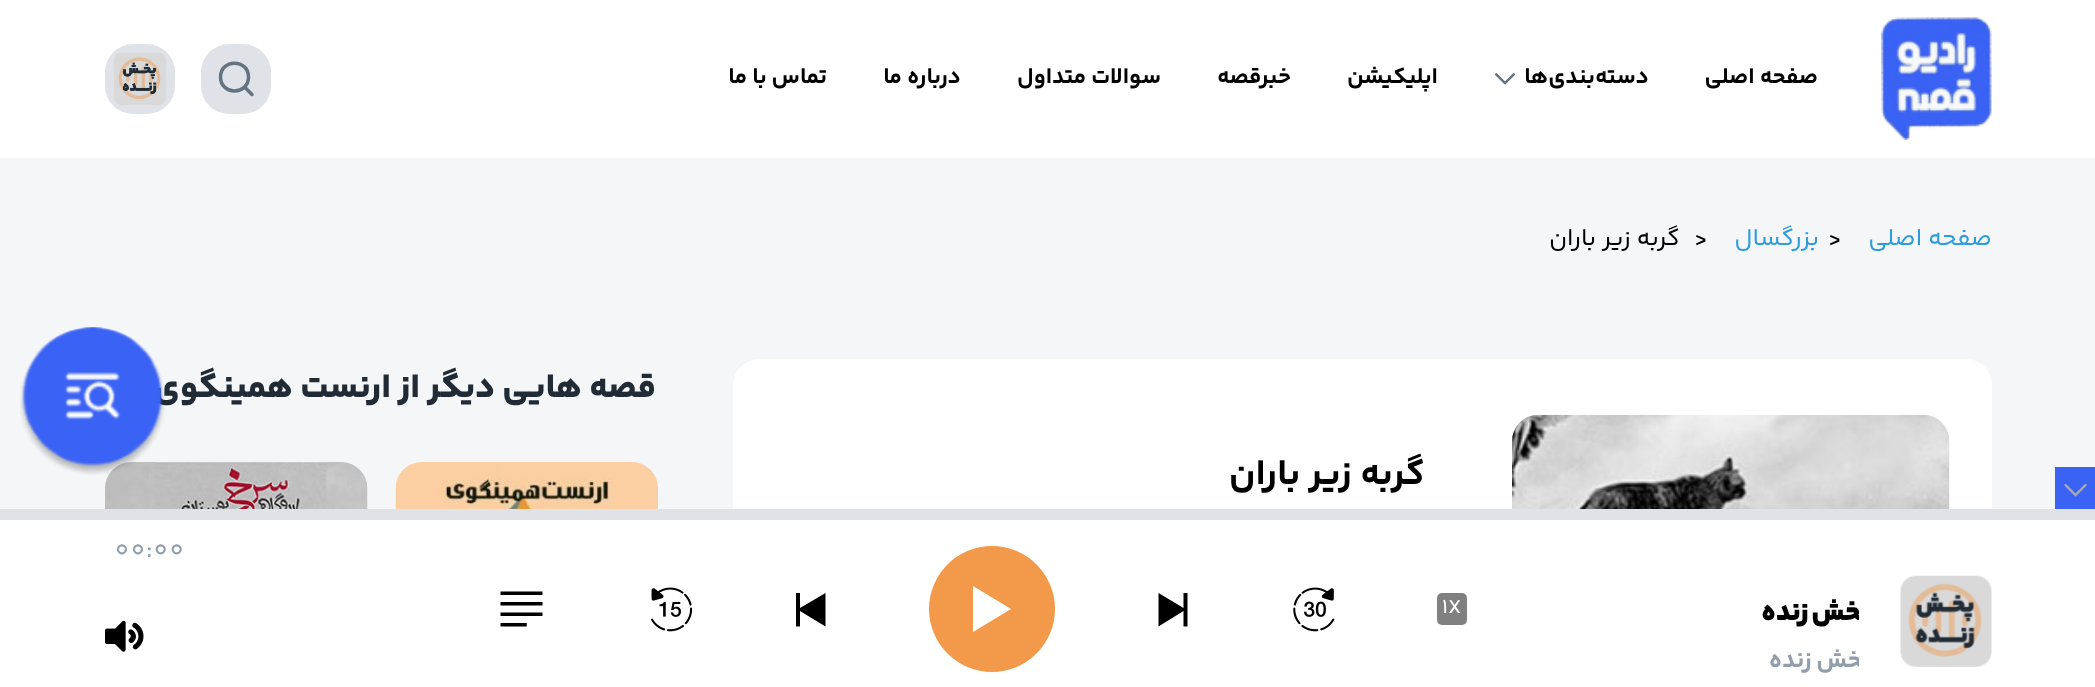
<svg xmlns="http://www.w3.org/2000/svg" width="2095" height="687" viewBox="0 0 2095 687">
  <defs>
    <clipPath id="clip1"><rect x="1521" y="564" width="338" height="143"/></clipPath>
  </defs>
  <rect width="100%" height="100%" fill="rgb(244,246,248)"/>
  <rect x="0" y="0" width="2095" height="158" fill="rgb(255,255,255)"/>
  <image x="1881" y="17" width="111" height="123" href="pic1.png"/>
  <g font-family="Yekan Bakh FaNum" font-size="22.75" font-weight="bold" direction="rtl" fill="rgb(0,0,0)">
    <text x="1818" y="83">صفحه اصلی</text>
    <text x="1649" y="83">دسته‌بندی‌ها</text>
  </g>
  <image x="1495" y="73" width="20" height="12" href="pic2.png"/>
  <g font-family="Yekan Bakh FaNum" font-size="22.75" font-weight="bold" direction="rtl" fill="rgb(0,0,0)">
    <text x="1438" y="83">اپلیکیشن</text>
    <text x="1291" y="83">خبرقصه</text>
    <text x="1161" y="83">سوالات متداول</text>
    <text x="961" y="83">درباره ما</text>
    <text x="827" y="83">تماس با ما</text>
  </g>
  <rect x="201" y="44" width="70" height="70" rx="28" fill="rgb(223,227,232)"/>
  <path d="M252 94.5L244.5 87M248.5 77C248.5 95.5 220.5 95.5 220.5 77C220.5 58.5 248.5 58.5 248.5 77Z" fill="none" stroke="rgb(99,115,129)" stroke-width="3.5" stroke-linecap="round" stroke-linejoin="round"/>
  <rect x="105" y="44" width="70" height="70" rx="28" fill="rgb(223,227,232)"/>
  <image x="113" y="52" width="54" height="53" href="pic3.png"/>
  <text x="1992" y="245" font-family="Yekan Bakh FaNum" font-size="24.5" direction="rtl" fill="rgb(45,156,219)">صفحه اصلی</text>
  <text x="1828" y="245" font-family="Yekan Bakh FaNum" font-size="24.5" fill="rgb(0,0,0)">&gt;</text>
  <text x="1819" y="245" font-family="Yekan Bakh FaNum" font-size="24.5" direction="rtl" fill="rgb(45,156,219)">بزرگسال</text>
  <text x="1694" y="245" font-family="Yekan Bakh FaNum" font-size="24.5" fill="rgb(0,0,0)">&gt;</text>
  <text x="1680" y="245" font-family="Yekan Bakh FaNum" font-size="24.5" direction="rtl" fill="rgb(0,0,0)">گربه زیر باران</text>
  <g font-family="Yekan Bakh FaNum" font-size="35" font-weight="800" direction="rtl" fill="rgb(33,43,54)">
    <text x="656" y="397">قصه هایی دیگر از</text>
    <text x="391" y="397">ارنست همینگوی</text>
  </g>
  <image x="395" y="462" width="263" height="47" href="pic4.png"/>
  <image x="105" y="462" width="263" height="47" href="pic5.png"/>
  <rect x="733" y="359" width="1259" height="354" rx="26" fill="rgb(255,255,255)"/>
  <image x="1512" y="414" width="438" height="95" href="pic6.png"/>
  <text x="1425" y="484" font-family="Yekan Bakh FaNum" font-size="36.75" font-weight="bold" direction="rtl" fill="rgb(0,0,0)">گربه زیر باران</text>
  <image x="20" y="327" width="145" height="148" href="pic7.png"/>
  <rect x="0" y="520" width="2095" height="167" fill="rgb(255,255,255)"/>
  <rect x="2055" y="467" width="40" height="42" fill="rgb(58,98,244)"/>
  <image x="2064" y="483" width="23" height="14" href="pic8.png"/>
  <rect x="0" y="509" width="2095" height="11" fill="rgb(223,227,232)"/>
  <text x="114" y="557" font-family="Yekan Bakh FaNum" font-size="26" fill="rgb(145,158,171)">00:00</text>
  <image x="1900" y="575" width="92" height="92" href="pic9.png"/>
  <g clip-path="url(#clip1)">
    <text x="1871" y="620" word-spacing="-2" font-family="Yekan Bakh FaNum" font-size="28" font-weight="900" letter-spacing="1.75" direction="rtl" fill="rgb(0,0,0)">پخش زنده</text>
    <text x="1871" y="667" word-spacing="-1" font-family="Yekan Bakh FaNum" font-size="24.5" font-weight="bold" letter-spacing="1.75" direction="rtl" fill="rgb(145,158,171)">پخش زنده</text>
  </g>
  <rect x="1437" y="593" width="30" height="32" rx="5" fill="rgb(128,128,128)"/>
  <text x="1442" y="613" font-family="Yekan Bakh FaNum" font-size="21" fill="rgb(255,255,255)">1X</text>
  <image x="1293" y="587" width="42" height="45" href="pic10.png"/>
  <path d="M1158.5 593V626.5L1183.5 611V626.5H1187.5V593H1183.5V608Z" fill="rgb(0,0,0)"/>
  <circle cx="992" cy="609" r="63" fill="rgb(242,153,74)"/>
  <path d="M973 586L1011 609L973 632Z" fill="rgb(255,255,255)"/>
  <path d="M825.5 593L800 608V593H796V626.5H800V611L825.5 626.5Z" fill="rgb(0,0,0)"/>
  <image x="651" y="587" width="42" height="45" href="pic11.png"/>
  <image x="500" y="591" width="43" height="36" href="pic12.png"/>
  <image x="105" y="620" width="39" height="32" href="pic13.png"/>
</svg>
